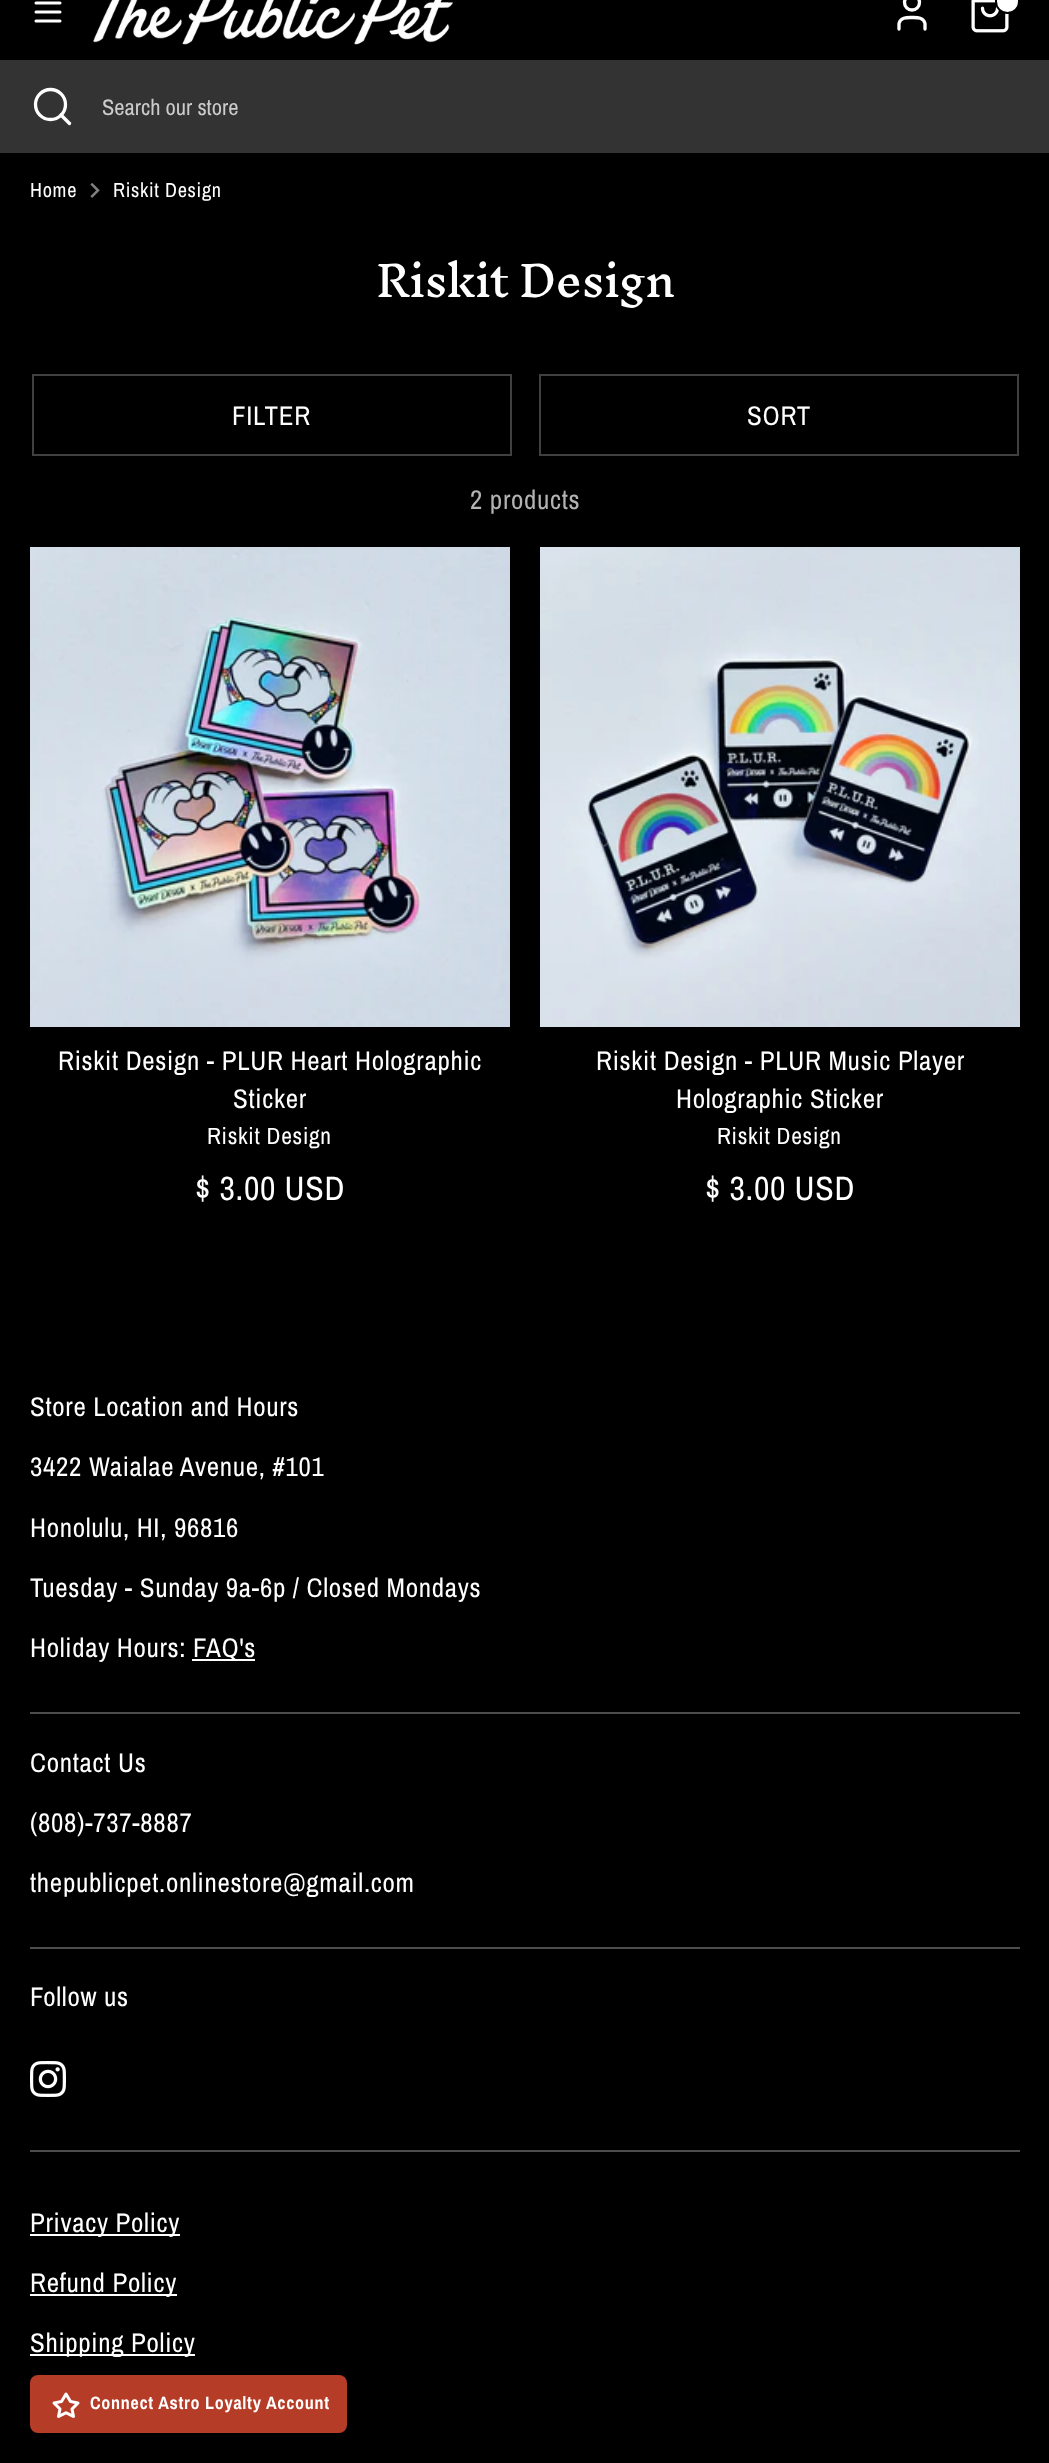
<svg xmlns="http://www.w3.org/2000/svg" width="1049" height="2463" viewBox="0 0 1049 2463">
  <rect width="100%" height="100%" fill="rgb(0,0,0)"/>
  <path d="M36 12H60M36 3H60M36 21H60" fill="none" stroke="rgb(255,255,255)" stroke-width="3" stroke-linecap="round" stroke-linejoin="round"/>
  <image x="93" y="0" width="360" height="45" href="pic1.png"/>
  <path d="M925 29V23.5C923.5 17 917 17.5 912 17.5C907 17.5 900.5 17 899 23.5V29" fill="none" stroke="rgb(255,255,255)" stroke-width="3.3" stroke-linecap="round" stroke-linejoin="round"/>
  <circle cx="912" cy="2.5" r="7.5" fill="none" stroke="rgb(255,255,255)" stroke-width="3.3"/>
  <image x="971" y="0" width="38" height="33" href="pic2.png"/>
  <rect x="996" y="-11" width="23" height="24" rx="11.5" fill="rgb(255,255,255)" stroke="rgb(0,0,0)" stroke-width="2"/>
  <rect x="0" y="60" width="1049" height="93" fill="rgb(51,51,51)"/>
  <circle cx="50.5" cy="104.5" r="15" fill="none" stroke="rgb(255,255,255)" stroke-width="3.3"/>
  <path d="M69.5 123.5L61 115" fill="none" stroke="rgb(255,255,255)" stroke-width="3.3" stroke-linecap="round" stroke-linejoin="round"/>
  <text x="102" y="115" font-family="Archivo Narrow" font-size="22.5" fill="rgb(204,204,204)">Search our store</text>
  <text x="30" y="197" font-family="Archivo Narrow" font-size="20.25" letter-spacing="0.7" fill="rgb(255,255,255)">Home</text>
  <image x="90" y="182" width="10" height="16" href="pic3.png"/>
  <text x="113" y="197" font-family="Archivo Narrow" font-size="20.25" letter-spacing="0.7" fill="rgb(255,255,255)">Riskit Design</text>
  <text x="376" y="297" font-family="Inknut Antiqua" font-size="42" letter-spacing="-1" fill="rgb(255,255,255)">Riskit Design</text>
  <rect x="33" y="375" width="478" height="80" fill="none" stroke="rgb(64,64,64)" stroke-width="2"/>
  <text x="232" y="425" font-family="Archivo Narrow" font-size="27" letter-spacing="0.7" fill="rgb(255,255,255)">FILTER</text>
  <rect x="540" y="375" width="478" height="80" fill="none" stroke="rgb(64,64,64)" stroke-width="2"/>
  <text x="747" y="425" font-family="Archivo Narrow" font-size="27" letter-spacing="0.7" fill="rgb(255,255,255)">SORT</text>
  <text x="470" y="509" font-family="Archivo Narrow" font-size="27" letter-spacing="0.7" fill="rgb(179,179,179)">2 products</text>
  <image x="30" y="547" width="480" height="480" href="pic4.png"/>
  <g font-family="Archivo Narrow" font-size="27" letter-spacing="0.7" fill="rgb(255,255,255)">
    <text x="58" y="1070">Riskit Design - PLUR Heart Holographic</text>
    <text x="233" y="1108">Sticker</text>
  </g>
  <text x="207" y="1144" font-family="Archivo Narrow" font-size="23.5" letter-spacing="0.7" fill="rgb(255,255,255)">Riskit Design</text>
  <text x="195" y="1200" font-family="Archivo Narrow" font-size="33.75" letter-spacing="0.7" fill="rgb(255,255,255)">$ 3.00 USD</text>
  <image x="540" y="547" width="480" height="480" href="pic5.png"/>
  <g font-family="Archivo Narrow" font-size="27" letter-spacing="0.7" fill="rgb(255,255,255)">
    <text x="596" y="1070">Riskit Design - PLUR Music Player</text>
    <text x="676" y="1108">Holographic Sticker</text>
  </g>
  <text x="717" y="1144" font-family="Archivo Narrow" font-size="23.5" letter-spacing="0.7" fill="rgb(255,255,255)">Riskit Design</text>
  <text x="705" y="1200" font-family="Archivo Narrow" font-size="33.75" letter-spacing="0.7" fill="rgb(255,255,255)">$ 3.00 USD</text>
  <rect x="30" y="1712" width="990" height="2" fill="rgb(77,77,77)"/>
  <g font-family="Archivo Narrow" font-size="27" letter-spacing="0.7" fill="rgb(255,255,255)">
    <text x="30" y="1416">Store Location and Hours</text>
    <text x="30" y="1476">3422 Waialae Avenue, #101</text>
    <text x="30" y="1537">Honolulu, HI, 96816</text>
    <text x="30" y="1597">Tuesday - Sunday 9a-6p / Closed Mondays</text>
    <text x="30" y="1657">Holiday Hours:</text>
  </g>
  <rect x="192" y="1659" width="63" height="2" fill="rgb(255,255,255)"/>
  <text x="193" y="1657" font-family="Archivo Narrow" font-size="27" letter-spacing="0.7" fill="rgb(255,255,255)">FAQ's</text>
  <rect x="30" y="1947" width="990" height="2" fill="rgb(77,77,77)"/>
  <g font-family="Archivo Narrow" font-size="27" letter-spacing="0.7" fill="rgb(255,255,255)">
    <text x="30" y="1772">Contact Us</text>
    <text x="30" y="1832">(808)-737-8887</text>
    <text x="30" y="1892">thepublicpet.onlinestore@gmail.com</text>
  </g>
  <rect x="30" y="2150" width="990" height="2" fill="rgb(77,77,77)"/>
  <text x="30" y="2006" font-family="Archivo Narrow" font-size="27" letter-spacing="0.7" fill="rgb(255,255,255)">Follow us</text>
  <image x="30" y="2061" width="36" height="36" href="pic6.png"/>
  <rect x="30" y="2234" width="150" height="2" fill="rgb(255,255,255)"/>
  <text x="30" y="2232" font-family="Archivo Narrow" font-size="27" letter-spacing="0.7" fill="rgb(255,255,255)">Privacy Policy</text>
  <rect x="30" y="2294" width="147" height="2" fill="rgb(255,255,255)"/>
  <text x="30" y="2292" font-family="Archivo Narrow" font-size="27" letter-spacing="0.7" fill="rgb(255,255,255)">Refund Policy</text>
  <rect x="30" y="2354" width="165" height="2" fill="rgb(255,255,255)"/>
  <text x="30" y="2352" font-family="Archivo Narrow" font-size="27" letter-spacing="0.7" fill="rgb(255,255,255)">Shipping Policy</text>
  <rect x="30" y="2375" width="317" height="58" rx="8" fill="rgb(181,60,39)"/>
  <image x="52" y="2392" width="28" height="26" href="pic7.png"/>
  <text x="90" y="2409" font-family="Archivo Narrow" font-size="18" font-weight="bold" letter-spacing="0.7" fill="rgb(255,255,255)">Connect Astro Loyalty Account</text>
</svg>
